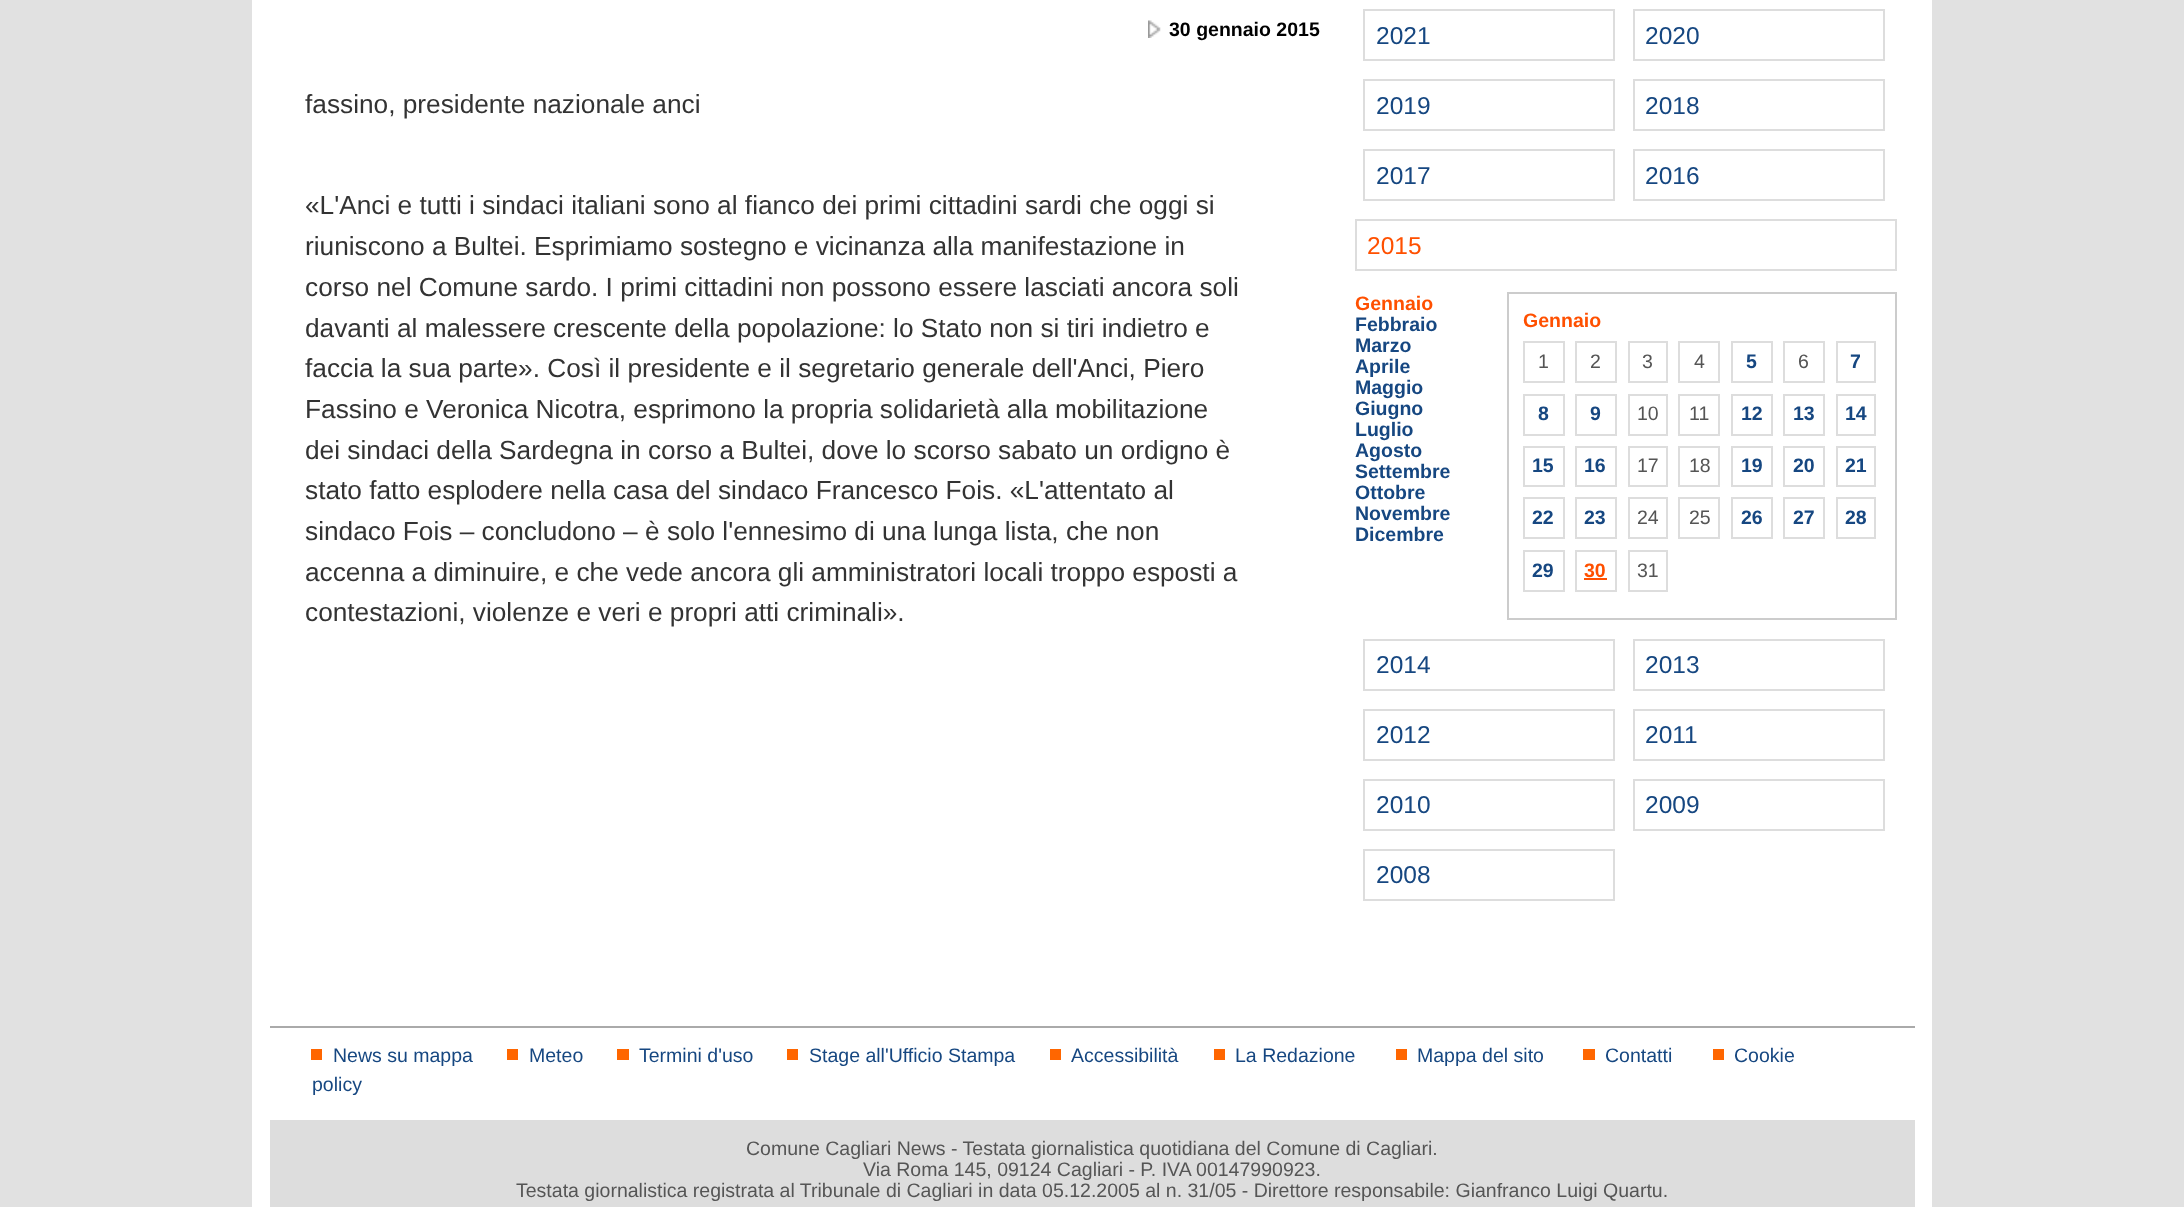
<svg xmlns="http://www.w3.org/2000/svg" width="2184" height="1207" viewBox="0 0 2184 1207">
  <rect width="100%" height="100%" fill="rgb(225,225,225)"/>
  <rect x="252" y="0" width="1680" height="1207" fill="rgb(255,255,255)"/>
  <image x="1148" y="20" width="13" height="18" href="pic1.png"/>
  <text x="1169" y="36" font-family="Liberation Sans" font-size="19.53" font-weight="bold" fill="rgb(0,0,0)">30 gennaio 2015</text>
  <g font-family="Liberation Sans" font-size="26.25" fill="rgb(51,51,51)">
    <text x="305" y="113">fassino, presidente nazionale anci</text>
    <text>
      <tspan x="305" y="214">«L'Anci e tutti i sindaci italiani sono al fianco dei primi cittadini sardi che oggi si</tspan>
      <tspan x="305" y="255">riuniscono a Bultei. Esprimiamo sostegno e vicinanza alla manifestazione in</tspan>
      <tspan x="305" y="296">corso nel Comune sardo. I primi cittadini non possono essere lasciati ancora soli</tspan>
      <tspan x="305" y="337">davanti al malessere crescente della popolazione: lo Stato non si tiri indietro e</tspan>
      <tspan x="305" y="377">faccia la sua parte». Così il presidente e il segretario generale dell'Anci, Piero</tspan>
      <tspan x="305" y="418">Fassino e Veronica Nicotra, esprimono la propria solidarietà alla mobilitazione</tspan>
      <tspan x="305" y="459">dei sindaci della Sardegna in corso a Bultei, dove lo scorso sabato un ordigno è</tspan>
      <tspan x="305" y="499">stato fatto esplodere nella casa del sindaco Francesco Fois. «L'attentato al</tspan>
      <tspan x="305" y="540">sindaco Fois – concludono – è solo l'ennesimo di una lunga lista, che non</tspan>
      <tspan x="305" y="581">accenna a diminuire, e che vede ancora gli amministratori locali troppo esposti a</tspan>
      <tspan x="305" y="621">contestazioni, violenze e veri e propri atti criminali».</tspan>
    </text>
  </g>
  <rect x="1364" y="10" width="250" height="50" fill="none" stroke="rgb(221,221,221)" stroke-width="2"/>
  <text x="1376" y="44" font-family="Liberation Sans" font-size="24.5" fill="rgb(22,71,129)">2021</text>
  <rect x="1634" y="10" width="250" height="50" fill="none" stroke="rgb(221,221,221)" stroke-width="2"/>
  <text x="1645" y="44" font-family="Liberation Sans" font-size="24.5" fill="rgb(22,71,129)">2020</text>
  <rect x="1364" y="80" width="250" height="50" fill="none" stroke="rgb(221,221,221)" stroke-width="2"/>
  <text x="1376" y="114" font-family="Liberation Sans" font-size="24.5" fill="rgb(22,71,129)">2019</text>
  <rect x="1634" y="80" width="250" height="50" fill="none" stroke="rgb(221,221,221)" stroke-width="2"/>
  <text x="1645" y="114" font-family="Liberation Sans" font-size="24.5" fill="rgb(22,71,129)">2018</text>
  <rect x="1364" y="150" width="250" height="50" fill="none" stroke="rgb(221,221,221)" stroke-width="2"/>
  <text x="1376" y="184" font-family="Liberation Sans" font-size="24.5" fill="rgb(22,71,129)">2017</text>
  <rect x="1634" y="150" width="250" height="50" fill="none" stroke="rgb(221,221,221)" stroke-width="2"/>
  <text x="1645" y="184" font-family="Liberation Sans" font-size="24.5" fill="rgb(22,71,129)">2016</text>
  <rect x="1356" y="220" width="540" height="50" fill="none" stroke="rgb(221,221,221)" stroke-width="2"/>
  <text x="1367" y="254" font-family="Liberation Sans" font-size="24.5" fill="rgb(255,80,0)">2015</text>
  <text x="1355" y="310" font-family="Liberation Sans" font-size="19.53" font-weight="bold" fill="rgb(255,80,0)">Gennaio</text>
  <g font-family="Liberation Sans" font-size="19.53" font-weight="bold" fill="rgb(22,71,129)">
    <text>
      <tspan x="1355" y="331">Febbraio</tspan>
      <tspan x="1355" y="352">Marzo</tspan>
      <tspan x="1355" y="373">Aprile</tspan>
      <tspan x="1355" y="394">Maggio</tspan>
      <tspan x="1355" y="415">Giugno</tspan>
      <tspan x="1355" y="436">Luglio</tspan>
      <tspan x="1355" y="457">Agosto</tspan>
      <tspan x="1355" y="478">Settembre</tspan>
      <tspan x="1355" y="499">Ottobre</tspan>
      <tspan x="1355" y="520">Novembre</tspan>
      <tspan x="1355" y="541">Dicembre</tspan>
    </text>
  </g>
  <rect x="1508" y="293" width="388" height="326" fill="none" stroke="rgb(204,204,204)" stroke-width="2"/>
  <text x="1523" y="327" font-family="Liberation Sans" font-size="19.53" font-weight="bold" fill="rgb(255,80,0)">Gennaio</text>
  <rect x="1524" y="342" width="40" height="40" fill="none" stroke="rgb(221,221,221)" stroke-width="2"/>
  <text x="1538" y="368" font-family="Liberation Sans" font-size="19.53" fill="rgb(85,85,85)">1</text>
  <rect x="1576" y="342" width="40" height="40" fill="none" stroke="rgb(221,221,221)" stroke-width="2"/>
  <text x="1590" y="368" font-family="Liberation Sans" font-size="19.53" fill="rgb(85,85,85)">2</text>
  <rect x="1629" y="342" width="38" height="40" fill="none" stroke="rgb(221,221,221)" stroke-width="2"/>
  <text x="1642" y="368" font-family="Liberation Sans" font-size="19.53" fill="rgb(85,85,85)">3</text>
  <rect x="1679" y="342" width="40" height="40" fill="none" stroke="rgb(221,221,221)" stroke-width="2"/>
  <text x="1694" y="368" font-family="Liberation Sans" font-size="19.53" fill="rgb(85,85,85)">4</text>
  <rect x="1732" y="342" width="40" height="40" fill="none" stroke="rgb(221,221,221)" stroke-width="2"/>
  <text x="1746" y="368" font-family="Liberation Sans" font-size="19.53" font-weight="bold" fill="rgb(22,71,129)">5</text>
  <rect x="1784" y="342" width="40" height="40" fill="none" stroke="rgb(221,221,221)" stroke-width="2"/>
  <text x="1798" y="368" font-family="Liberation Sans" font-size="19.53" fill="rgb(85,85,85)">6</text>
  <rect x="1837" y="342" width="38" height="40" fill="none" stroke="rgb(221,221,221)" stroke-width="2"/>
  <text x="1850" y="368" font-family="Liberation Sans" font-size="19.53" font-weight="bold" fill="rgb(22,71,129)">7</text>
  <rect x="1524" y="395" width="40" height="40" fill="none" stroke="rgb(221,221,221)" stroke-width="2"/>
  <text x="1538" y="420" font-family="Liberation Sans" font-size="19.53" font-weight="bold" fill="rgb(22,71,129)">8</text>
  <rect x="1576" y="395" width="40" height="40" fill="none" stroke="rgb(221,221,221)" stroke-width="2"/>
  <text x="1590" y="420" font-family="Liberation Sans" font-size="19.53" font-weight="bold" fill="rgb(22,71,129)">9</text>
  <rect x="1629" y="395" width="38" height="40" fill="none" stroke="rgb(221,221,221)" stroke-width="2"/>
  <text x="1637" y="420" font-family="Liberation Sans" font-size="19.53" fill="rgb(85,85,85)">10</text>
  <rect x="1679" y="395" width="40" height="40" fill="none" stroke="rgb(221,221,221)" stroke-width="2"/>
  <text x="1689" y="420" font-family="Liberation Sans" font-size="19.53" fill="rgb(85,85,85)">11</text>
  <rect x="1732" y="395" width="40" height="40" fill="none" stroke="rgb(221,221,221)" stroke-width="2"/>
  <text x="1741" y="420" font-family="Liberation Sans" font-size="19.53" font-weight="bold" fill="rgb(22,71,129)">12</text>
  <rect x="1784" y="395" width="40" height="40" fill="none" stroke="rgb(221,221,221)" stroke-width="2"/>
  <text x="1793" y="420" font-family="Liberation Sans" font-size="19.53" font-weight="bold" fill="rgb(22,71,129)">13</text>
  <rect x="1837" y="395" width="38" height="40" fill="none" stroke="rgb(221,221,221)" stroke-width="2"/>
  <text x="1845" y="420" font-family="Liberation Sans" font-size="19.53" font-weight="bold" fill="rgb(22,71,129)">14</text>
  <rect x="1524" y="447" width="40" height="39" fill="none" stroke="rgb(221,221,221)" stroke-width="2"/>
  <text x="1532" y="472" font-family="Liberation Sans" font-size="19.53" font-weight="bold" fill="rgb(22,71,129)">15</text>
  <rect x="1576" y="447" width="40" height="39" fill="none" stroke="rgb(221,221,221)" stroke-width="2"/>
  <text x="1584" y="472" font-family="Liberation Sans" font-size="19.53" font-weight="bold" fill="rgb(22,71,129)">16</text>
  <rect x="1629" y="447" width="38" height="39" fill="none" stroke="rgb(221,221,221)" stroke-width="2"/>
  <text x="1637" y="472" font-family="Liberation Sans" font-size="19.53" fill="rgb(85,85,85)">17</text>
  <rect x="1679" y="447" width="40" height="39" fill="none" stroke="rgb(221,221,221)" stroke-width="2"/>
  <text x="1689" y="472" font-family="Liberation Sans" font-size="19.53" fill="rgb(85,85,85)">18</text>
  <rect x="1732" y="447" width="40" height="39" fill="none" stroke="rgb(221,221,221)" stroke-width="2"/>
  <text x="1741" y="472" font-family="Liberation Sans" font-size="19.53" font-weight="bold" fill="rgb(22,71,129)">19</text>
  <rect x="1784" y="447" width="40" height="39" fill="none" stroke="rgb(221,221,221)" stroke-width="2"/>
  <text x="1793" y="472" font-family="Liberation Sans" font-size="19.53" font-weight="bold" fill="rgb(22,71,129)">20</text>
  <rect x="1837" y="447" width="38" height="39" fill="none" stroke="rgb(221,221,221)" stroke-width="2"/>
  <text x="1845" y="472" font-family="Liberation Sans" font-size="19.53" font-weight="bold" fill="rgb(22,71,129)">21</text>
  <rect x="1524" y="498" width="40" height="40" fill="none" stroke="rgb(221,221,221)" stroke-width="2"/>
  <text x="1532" y="524" font-family="Liberation Sans" font-size="19.53" font-weight="bold" fill="rgb(22,71,129)">22</text>
  <rect x="1576" y="498" width="40" height="40" fill="none" stroke="rgb(221,221,221)" stroke-width="2"/>
  <text x="1584" y="524" font-family="Liberation Sans" font-size="19.53" font-weight="bold" fill="rgb(22,71,129)">23</text>
  <rect x="1629" y="498" width="38" height="40" fill="none" stroke="rgb(221,221,221)" stroke-width="2"/>
  <text x="1637" y="524" font-family="Liberation Sans" font-size="19.53" fill="rgb(85,85,85)">24</text>
  <rect x="1679" y="498" width="40" height="40" fill="none" stroke="rgb(221,221,221)" stroke-width="2"/>
  <text x="1689" y="524" font-family="Liberation Sans" font-size="19.53" fill="rgb(85,85,85)">25</text>
  <rect x="1732" y="498" width="40" height="40" fill="none" stroke="rgb(221,221,221)" stroke-width="2"/>
  <text x="1741" y="524" font-family="Liberation Sans" font-size="19.53" font-weight="bold" fill="rgb(22,71,129)">26</text>
  <rect x="1784" y="498" width="40" height="40" fill="none" stroke="rgb(221,221,221)" stroke-width="2"/>
  <text x="1793" y="524" font-family="Liberation Sans" font-size="19.53" font-weight="bold" fill="rgb(22,71,129)">27</text>
  <rect x="1837" y="498" width="38" height="40" fill="none" stroke="rgb(221,221,221)" stroke-width="2"/>
  <text x="1845" y="524" font-family="Liberation Sans" font-size="19.53" font-weight="bold" fill="rgb(22,71,129)">28</text>
  <rect x="1524" y="551" width="40" height="40" fill="none" stroke="rgb(221,221,221)" stroke-width="2"/>
  <text x="1532" y="577" font-family="Liberation Sans" font-size="19.53" font-weight="bold" fill="rgb(22,71,129)">29</text>
  <rect x="1576" y="551" width="40" height="40" fill="none" stroke="rgb(221,221,221)" stroke-width="2"/>
  <text x="1584" y="577" font-family="Liberation Sans" font-size="19.53" font-weight="bold" fill="rgb(255,80,0)">30</text>
  <rect x="1584" y="578" width="23" height="2" fill="rgb(255,80,0)"/>
  <rect x="1629" y="551" width="38" height="40" fill="none" stroke="rgb(221,221,221)" stroke-width="2"/>
  <text x="1637" y="577" font-family="Liberation Sans" font-size="19.53" fill="rgb(85,85,85)">31</text>
  <rect x="1364" y="640" width="250" height="50" fill="none" stroke="rgb(221,221,221)" stroke-width="2"/>
  <text x="1376" y="673" font-family="Liberation Sans" font-size="24.5" fill="rgb(22,71,129)">2014</text>
  <rect x="1634" y="640" width="250" height="50" fill="none" stroke="rgb(221,221,221)" stroke-width="2"/>
  <text x="1645" y="673" font-family="Liberation Sans" font-size="24.5" fill="rgb(22,71,129)">2013</text>
  <rect x="1364" y="710" width="250" height="50" fill="none" stroke="rgb(221,221,221)" stroke-width="2"/>
  <text x="1376" y="743" font-family="Liberation Sans" font-size="24.5" fill="rgb(22,71,129)">2012</text>
  <rect x="1634" y="710" width="250" height="50" fill="none" stroke="rgb(221,221,221)" stroke-width="2"/>
  <text x="1645" y="743" font-family="Liberation Sans" font-size="24.5" fill="rgb(22,71,129)">2011</text>
  <rect x="1364" y="780" width="250" height="50" fill="none" stroke="rgb(221,221,221)" stroke-width="2"/>
  <text x="1376" y="813" font-family="Liberation Sans" font-size="24.5" fill="rgb(22,71,129)">2010</text>
  <rect x="1634" y="780" width="250" height="50" fill="none" stroke="rgb(221,221,221)" stroke-width="2"/>
  <text x="1645" y="813" font-family="Liberation Sans" font-size="24.5" fill="rgb(22,71,129)">2009</text>
  <rect x="1364" y="850" width="250" height="50" fill="none" stroke="rgb(221,221,221)" stroke-width="2"/>
  <text x="1376" y="883" font-family="Liberation Sans" font-size="24.5" fill="rgb(22,71,129)">2008</text>
  <rect x="270" y="1026" width="1645" height="2" fill="rgb(170,170,170)"/>
  <text x="333" y="1062" font-family="Liberation Sans" font-size="19.53" fill="rgb(22,71,129)">News su mappa</text>
  <rect x="311" y="1049" width="11" height="11" fill="rgb(255,102,0)"/>
  <text x="529" y="1062" font-family="Liberation Sans" font-size="19.53" fill="rgb(22,71,129)">Meteo</text>
  <rect x="507" y="1049" width="11" height="11" fill="rgb(255,102,0)"/>
  <text x="639" y="1062" font-family="Liberation Sans" font-size="19.53" fill="rgb(22,71,129)">Termini d'uso</text>
  <rect x="617" y="1049" width="12" height="11" fill="rgb(255,102,0)"/>
  <text x="809" y="1062" font-family="Liberation Sans" font-size="19.53" fill="rgb(22,71,129)">Stage all'Ufficio Stampa</text>
  <rect x="787" y="1049" width="11" height="11" fill="rgb(255,102,0)"/>
  <text x="1071" y="1062" font-family="Liberation Sans" font-size="19.53" fill="rgb(22,71,129)">Accessibilità</text>
  <rect x="1050" y="1049" width="11" height="11" fill="rgb(255,102,0)"/>
  <text x="1235" y="1062" font-family="Liberation Sans" font-size="19.53" fill="rgb(22,71,129)">La Redazione</text>
  <rect x="1214" y="1049" width="11" height="11" fill="rgb(255,102,0)"/>
  <text x="1417" y="1062" font-family="Liberation Sans" font-size="19.53" fill="rgb(22,71,129)">Mappa del sito</text>
  <rect x="1396" y="1049" width="11" height="11" fill="rgb(255,102,0)"/>
  <text x="1605" y="1062" font-family="Liberation Sans" font-size="19.53" fill="rgb(22,71,129)">Contatti</text>
  <rect x="1583" y="1049" width="12" height="11" fill="rgb(255,102,0)"/>
  <text x="1734" y="1062" font-family="Liberation Sans" font-size="19.53" fill="rgb(22,71,129)">Cookie</text>
  <rect x="1713" y="1049" width="11" height="11" fill="rgb(255,102,0)"/>
  <text x="312" y="1091" font-family="Liberation Sans" font-size="19.53" fill="rgb(22,71,129)">policy</text>
  <rect x="270" y="1120" width="1645" height="87" fill="rgb(221,221,221)"/>
  <g font-family="Liberation Sans" font-size="19.53" fill="rgb(85,85,85)">
    <text x="746" y="1155">Comune Cagliari News - Testata giornalistica quotidiana del Comune di Cagliari.</text>
    <text x="863" y="1176">Via Roma 145, 09124 Cagliari - P. IVA 00147990923.</text>
    <text x="516" y="1197">Testata giornalistica registrata al Tribunale di Cagliari in data 05.12.2005 al n. 31/05 - Direttore responsabile: Gianfranco Luigi Quartu.</text>
  </g>
</svg>
